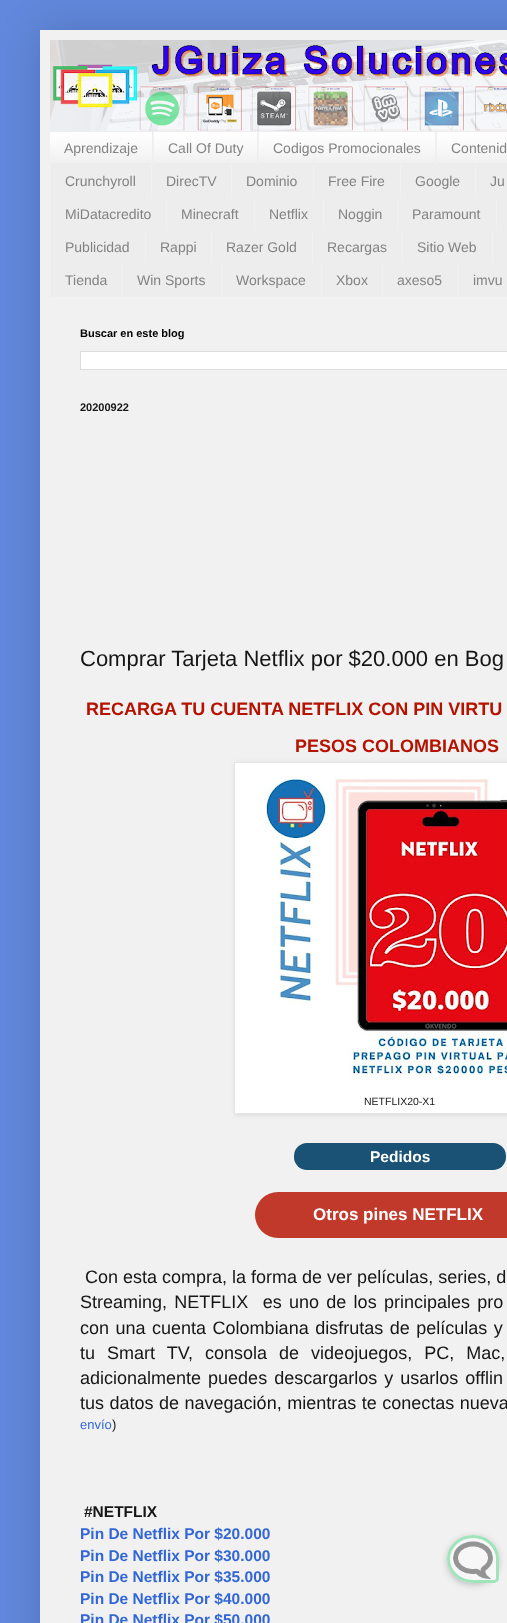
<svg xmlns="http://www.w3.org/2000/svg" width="507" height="1623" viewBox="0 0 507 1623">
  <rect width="100%" height="100%" fill="rgb(97,136,220)"/>
  <rect x="40" y="30" width="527" height="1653" fill="rgba(0,0,0,0.15)" filter="blur(20px)"/>
  <rect x="40" y="30" width="467" height="1593" fill="rgb(241,241,241)"/>
  <image x="50" y="40" width="457" height="91" href="pic1.png"/>
  <rect x="50" y="133" width="457" height="163" fill="rgb(237,237,237)"/>
  <image x="50" y="132" width="457" height="31" href="pic2.png"/>
  <rect x="50" y="131" width="457" height="1" fill="rgb(238,238,238)"/>
  <rect x="50" y="296" width="457" height="1" fill="rgb(238,238,238)"/>
  <rect x="152" y="132" width="1" height="33" fill="rgb(238,238,238)"/>
  <text x="64" y="153" font-family="Liberation Sans" font-size="14" fill="rgb(131,131,131)">Aprendizaje</text>
  <rect x="257" y="132" width="1" height="33" fill="rgb(238,238,238)"/>
  <rect x="153" y="132" width="1" height="33" fill="rgb(241,241,241)"/>
  <text x="168" y="153" font-family="Liberation Sans" font-size="14" fill="rgb(131,131,131)">Call Of Duty</text>
  <rect x="435" y="132" width="1" height="33" fill="rgb(238,238,238)"/>
  <rect x="258" y="132" width="1" height="33" fill="rgb(241,241,241)"/>
  <text x="273" y="153" font-family="Liberation Sans" font-size="14" fill="rgb(131,131,131)">Codigos Promocionales</text>
  <rect x="436" y="132" width="1" height="33" fill="rgb(241,241,241)"/>
  <text x="451" y="153" font-family="Liberation Sans" font-size="14" fill="rgb(131,131,131)">Contenid</text>
  <rect x="50" y="165" width="1" height="131" fill="rgb(241,241,241)"/>
  <text x="65" y="186" font-family="Liberation Sans" font-size="14" fill="rgb(131,131,131)">Crunchyroll</text>
  <rect x="151" y="165" width="1" height="33" fill="rgb(241,241,241)"/>
  <text x="166" y="186" font-family="Liberation Sans" font-size="14" fill="rgb(131,131,131)">DirecTV</text>
  <rect x="231" y="165" width="1" height="33" fill="rgb(241,241,241)"/>
  <text x="246" y="186" font-family="Liberation Sans" font-size="14" fill="rgb(131,131,131)">Dominio</text>
  <rect x="313" y="165" width="1" height="33" fill="rgb(241,241,241)"/>
  <text x="328" y="186" font-family="Liberation Sans" font-size="14" fill="rgb(131,131,131)">Free Fire</text>
  <rect x="400" y="165" width="1" height="33" fill="rgb(241,241,241)"/>
  <text x="415" y="186" font-family="Liberation Sans" font-size="14" fill="rgb(131,131,131)">Google</text>
  <rect x="475" y="165" width="1" height="33" fill="rgb(241,241,241)"/>
  <g font-family="Liberation Sans" font-size="14" fill="rgb(131,131,131)">
    <text x="490" y="186">Ju</text>
    <text x="65" y="219">MiDatacredito</text>
  </g>
  <rect x="166" y="198" width="1" height="32" fill="rgb(241,241,241)"/>
  <text x="181" y="219" font-family="Liberation Sans" font-size="14" fill="rgb(131,131,131)">Minecraft</text>
  <rect x="254" y="198" width="1" height="32" fill="rgb(241,241,241)"/>
  <text x="269" y="219" font-family="Liberation Sans" font-size="14" fill="rgb(131,131,131)">Netflix</text>
  <rect x="323" y="198" width="1" height="32" fill="rgb(241,241,241)"/>
  <text x="338" y="219" font-family="Liberation Sans" font-size="14" fill="rgb(131,131,131)">Noggin</text>
  <rect x="397" y="198" width="1" height="32" fill="rgb(241,241,241)"/>
  <text x="412" y="219" font-family="Liberation Sans" font-size="14" fill="rgb(131,131,131)">Paramount</text>
  <rect x="496" y="198" width="1" height="32" fill="rgb(241,241,241)"/>
  <text x="65" y="252" font-family="Liberation Sans" font-size="14" fill="rgb(131,131,131)">Publicidad</text>
  <rect x="145" y="230" width="1" height="33" fill="rgb(241,241,241)"/>
  <text x="160" y="252" font-family="Liberation Sans" font-size="14" fill="rgb(131,131,131)">Rappi</text>
  <rect x="211" y="230" width="1" height="33" fill="rgb(241,241,241)"/>
  <text x="226" y="252" font-family="Liberation Sans" font-size="14" fill="rgb(131,131,131)">Razer Gold</text>
  <rect x="312" y="230" width="1" height="33" fill="rgb(241,241,241)"/>
  <text x="327" y="252" font-family="Liberation Sans" font-size="14" fill="rgb(131,131,131)">Recargas</text>
  <rect x="402" y="230" width="1" height="33" fill="rgb(241,241,241)"/>
  <text x="417" y="252" font-family="Liberation Sans" font-size="14" fill="rgb(131,131,131)">Sitio Web</text>
  <rect x="492" y="230" width="1" height="33" fill="rgb(241,241,241)"/>
  <text x="65" y="285" font-family="Liberation Sans" font-size="14" fill="rgb(131,131,131)">Tienda</text>
  <rect x="122" y="263" width="1" height="33" fill="rgb(241,241,241)"/>
  <text x="137" y="285" font-family="Liberation Sans" font-size="14" fill="rgb(131,131,131)">Win Sports</text>
  <rect x="221" y="263" width="1" height="33" fill="rgb(241,241,241)"/>
  <text x="236" y="285" font-family="Liberation Sans" font-size="14" fill="rgb(131,131,131)">Workspace</text>
  <rect x="321" y="263" width="1" height="33" fill="rgb(241,241,241)"/>
  <text x="336" y="285" font-family="Liberation Sans" font-size="14" fill="rgb(131,131,131)">Xbox</text>
  <rect x="382" y="263" width="1" height="33" fill="rgb(241,241,241)"/>
  <text x="397" y="285" font-family="Liberation Sans" font-size="14" fill="rgb(131,131,131)">axeso5</text>
  <rect x="458" y="263" width="1" height="33" fill="rgb(241,241,241)"/>
  <text x="473" y="285" font-family="Liberation Sans" font-size="14" fill="rgb(131,131,131)">imvu</text>
  <text x="80" y="337" font-family="Liberation Sans" font-size="11" font-weight="bold" fill="rgb(0,0,0)">Buscar en este blog</text>
  <rect x="80.5" y="351.5" width="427" height="18" fill="rgb(255,255,255)" stroke="rgb(221,221,221)"/>
  <text x="80" y="411" font-family="Liberation Sans" font-size="11" font-weight="bold" fill="rgb(22,22,22)">20200922</text>
  <text x="80" y="666" font-family="Liberation Sans" font-size="22" fill="rgb(22,22,22)">Comprar Tarjeta Netflix por $20.000 en Bog</text>
  <g font-family="Liberation Sans" font-size="18" font-weight="bold" fill="rgb(181,18,0)">
    <text x="86" y="715">RECARGA TU CUENTA NETFLIX CON PIN VIRTU</text>
    <text x="295" y="752">PESOS COLOMBIANOS</text>
  </g>
  <rect x="235" y="763" width="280" height="352" fill="rgba(0,0,0,0.1)" filter="blur(2.5px)"/>
  <rect x="234.5" y="762.5" width="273" height="351" fill="rgb(255,255,255)" stroke="rgb(230,230,230)"/>
  <image x="264" y="776" width="243" height="304" href="pic3.png"/>
  <text x="364" y="1105" font-family="Liberation Sans" font-size="10.5" fill="rgb(22,22,22)">NETFLIX20-X1</text>
  <rect x="294" y="1143" width="212" height="27" rx="13" fill="rgb(26,82,118)"/>
  <text x="370" y="1162" font-family="Liberation Sans" font-size="15.5" font-weight="bold" fill="rgb(255,255,255)">Pedidos</text>
  <rect x="255" y="1192" width="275" height="46" rx="23" fill="rgb(192,57,43)"/>
  <text x="313" y="1220" font-family="Liberation Sans" font-size="17" font-weight="bold" fill="rgb(255,255,255)">Otros pines NETFLIX</text>
  <g font-family="Liberation Sans" font-size="18" fill="rgb(22,22,22)">
    <text x="85" y="1283">Con esta compra, la forma de ver películas, series, d</text>
    <text xml:space="preserve"><tspan x="80" y="1308" word-spacing="2.25">Streaming, NETFLIX  es uno de los principales pro</tspan><tspan x="80" y="1334" word-spacing="1.5">con una cuenta Colombiana disfrutas de películas y</tspan><tspan x="80" y="1359" word-spacing="7">tu Smart TV, consola de videojuegos, PC, Mac,</tspan><tspan x="80" y="1384" word-spacing="2">adicionalmente puedes descargarlos y usarlos offlin</tspan><tspan x="80" y="1409" word-spacing="0.5">tus datos de navegación, mientras te conectas nueva</tspan></text>
  </g>
  <text x="80" y="1429" font-family="Liberation Sans" font-size="13" fill="rgb(51,103,214)">envío</text>
  <text x="112" y="1429" font-family="Liberation Sans" font-size="13" fill="rgb(22,22,22)">)</text>
  <text x="84" y="1517" font-family="Liberation Sans" font-size="15.5" font-weight="bold" fill="rgb(22,22,22)">#NETFLIX</text>
  <g font-family="Liberation Sans" font-size="15.5" font-weight="bold" fill="rgb(51,103,214)">
    <text>
      <tspan x="80" y="1539">Pin De Netflix Por $20.000</tspan>
      <tspan x="80" y="1561">Pin De Netflix Por $30.000</tspan>
      <tspan x="80" y="1582">Pin De Netflix Por $35.000</tspan>
      <tspan x="80" y="1604">Pin De Netflix Por $40.000</tspan>
      <tspan x="80" y="1625">Pin De Netflix Por $50.000</tspan>
    </text>
  </g>
  <rect x="447" y="1537" width="52" height="48" rx="24" fill="rgba(145,145,145,0.5)" filter="blur(3px)"/>
  <path d="M473 1535C487 1535 499 1546 499 1559V1578C499 1581 497 1583 494 1583H473C459 1583 447 1572 447 1559C447 1546 459 1535 473 1535Z" fill="rgb(247,247,247)"/>
  <path d="M473 1536.5C486.5 1536.5 497.5 1546.5 497.5 1559V1578C497.5 1580 496 1581.5 494 1581.5H473C459.5 1581.5 448.5 1571.5 448.5 1559C448.5 1546.5 459.5 1536.5 473 1536.5Z" fill="none" stroke="rgb(159,229,185)" stroke-width="3"/>
  <image x="453" y="1541" width="40" height="38" href="pic4.png"/>
</svg>
